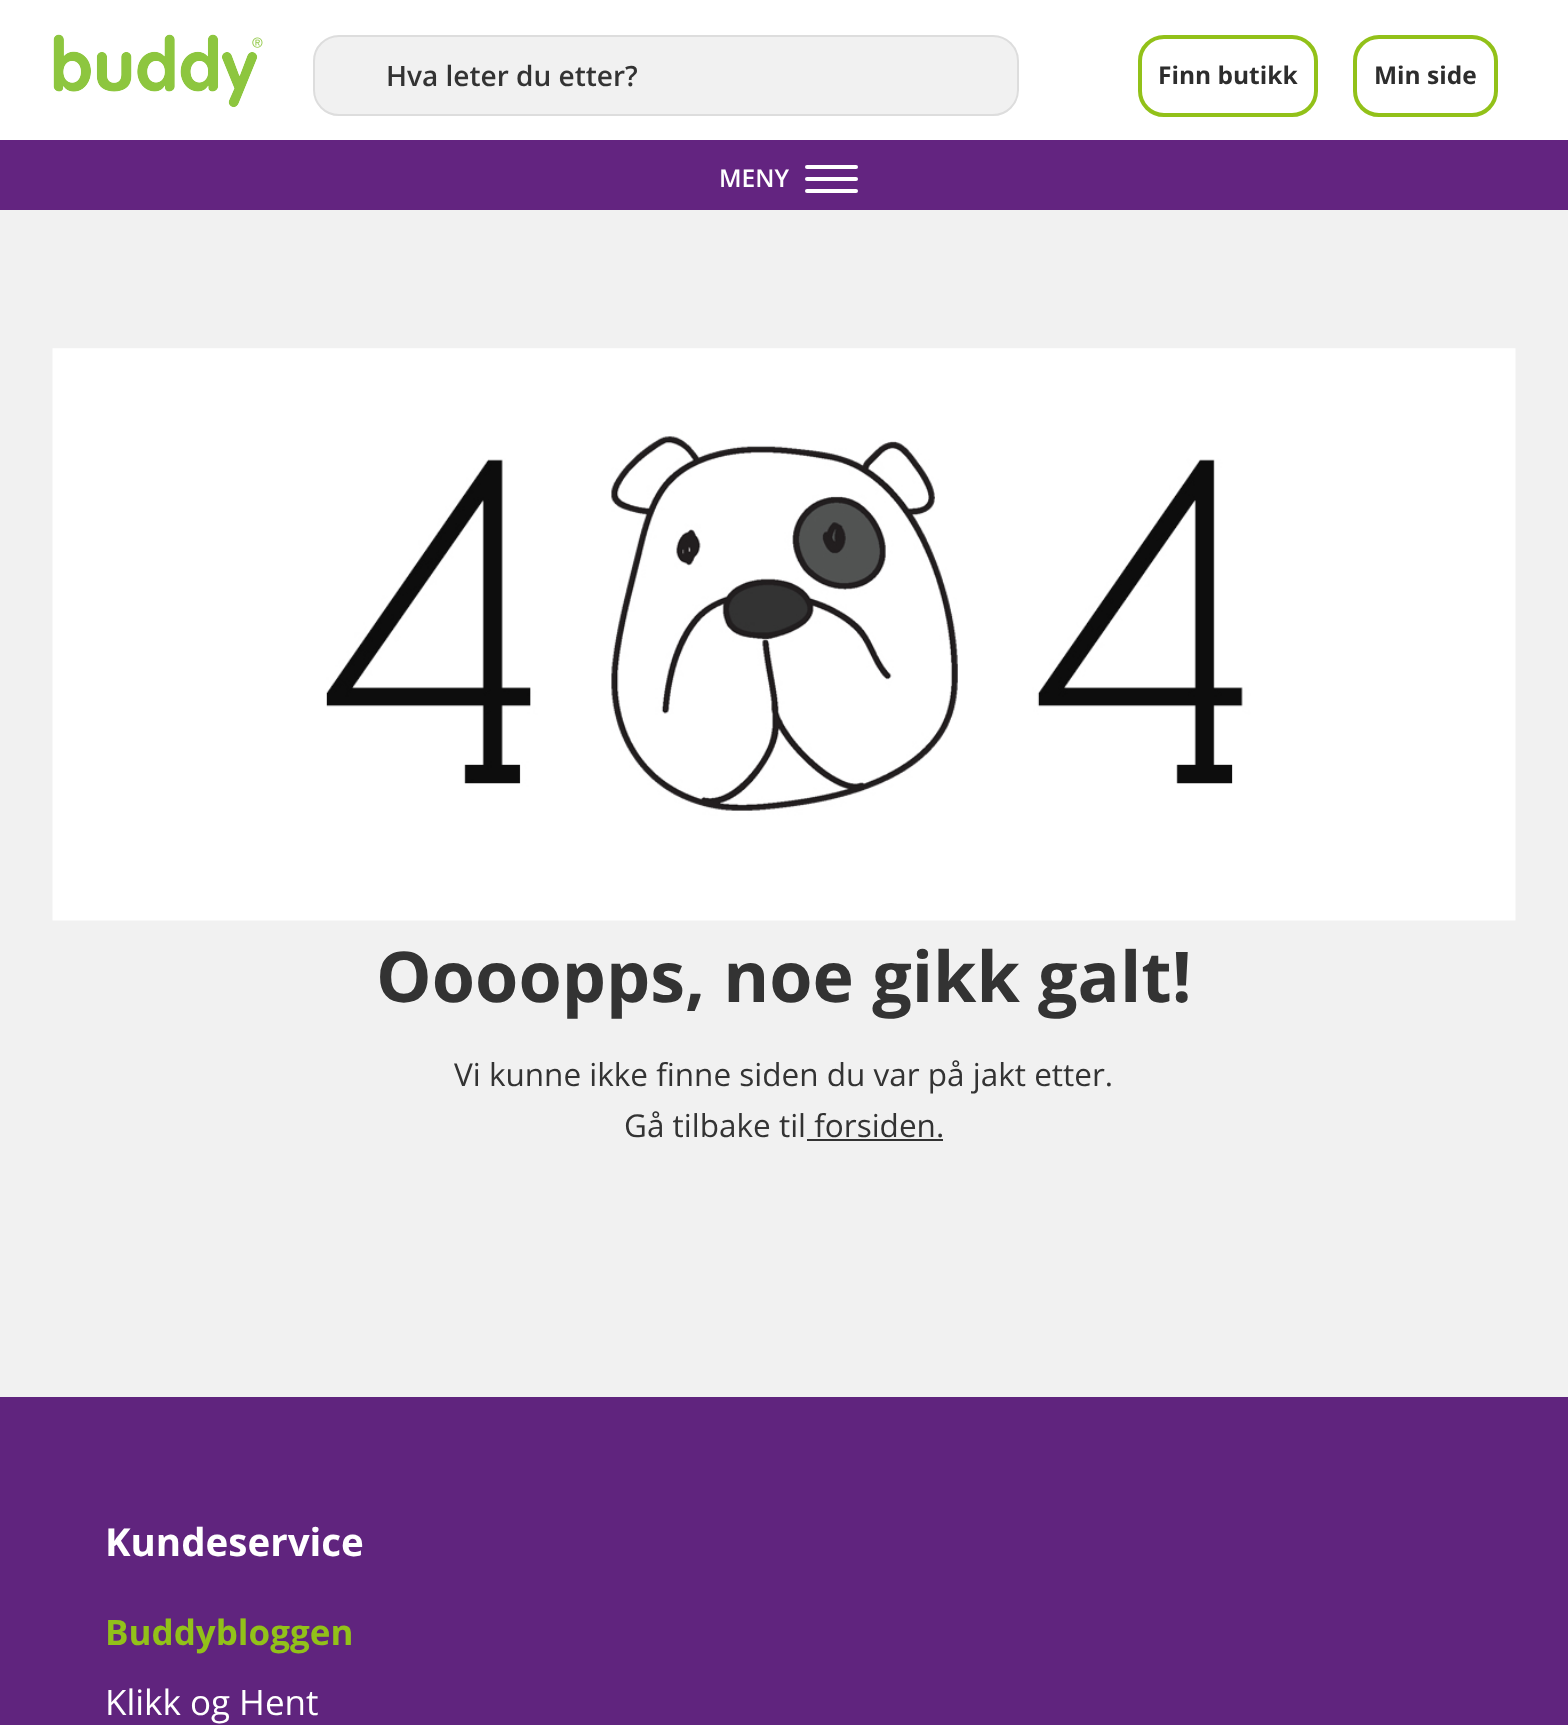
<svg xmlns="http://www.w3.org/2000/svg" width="1568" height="1725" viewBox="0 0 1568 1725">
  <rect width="100%" height="100%" fill="rgb(241,241,241)"/>
  <rect x="0" y="0" width="1568" height="140" fill="rgb(255,255,255)"/>
  <image x="53" y="34" width="210" height="74" href="pic1.png"/>
  <rect x="314" y="36" width="704" height="79" rx="25" fill="rgb(241,241,241)" stroke="rgb(221,221,221)" stroke-width="2"/>
  <text x="386" y="86" font-family="Open Sans" font-size="28" font-weight="600" fill="rgb(51,51,51)">Hva leter du etter?</text>
  <rect x="1140" y="37" width="176" height="78" rx="24" fill="none" stroke="rgb(146,193,25)" stroke-width="4"/>
  <text x="1158" y="84" font-family="Open Sans" font-size="24.5" font-weight="bold" fill="rgb(45,45,45)">Finn butikk</text>
  <rect x="1355" y="37" width="141" height="78" rx="24" fill="none" stroke="rgb(146,193,25)" stroke-width="4"/>
  <text x="1374" y="84" font-family="Open Sans" font-size="24.5" font-weight="bold" fill="rgb(45,45,45)">Min side</text>
  <image x="52" y="348" width="1464" height="573" href="pic2.png"/>
  <text x="376" y="1002" font-family="Open Sans" font-size="70" font-weight="bold" fill="rgb(51,51,51)">Oooopps, noe gikk galt!</text>
  <g font-family="Open Sans" font-size="31.5" fill="rgb(51,51,51)">
    <text x="454" y="1086">Vi kunne ikke finne siden du var på jakt etter.</text>
    <text x="624" y="1137">Gå tilbake til forsiden.</text>
  </g>
  <rect x="807" y="1139" width="136" height="2" fill="rgb(51,51,51)"/>
  <rect x="0" y="1397" width="1568" height="328" fill="rgb(96,36,126)"/>
  <text x="105" y="1556" font-family="Open Sans" font-size="38.5" font-weight="bold" fill="rgb(255,255,255)">Kundeservice</text>
  <text x="105" y="1645" font-family="Open Sans" font-size="35" font-weight="bold" fill="rgb(146,193,25)">Buddybloggen</text>
  <text x="105" y="1715" font-family="Open Sans" font-size="35" fill="rgb(255,255,255)">Klikk og Hent</text>
  <rect x="0" y="140" width="1568" height="70" fill="rgb(99,36,128)"/>
  <text x="719" y="187" font-family="Open Sans" font-size="24.5" font-weight="600" fill="rgb(255,255,255)">MENY</text>
  <rect x="805" y="177" width="53" height="4" rx="2" fill="rgb(255,255,255)"/>
  <rect x="805" y="165" width="53" height="4" rx="2" fill="rgb(255,255,255)"/>
  <rect x="805" y="189" width="53" height="4" rx="2" fill="rgb(255,255,255)"/>
</svg>
